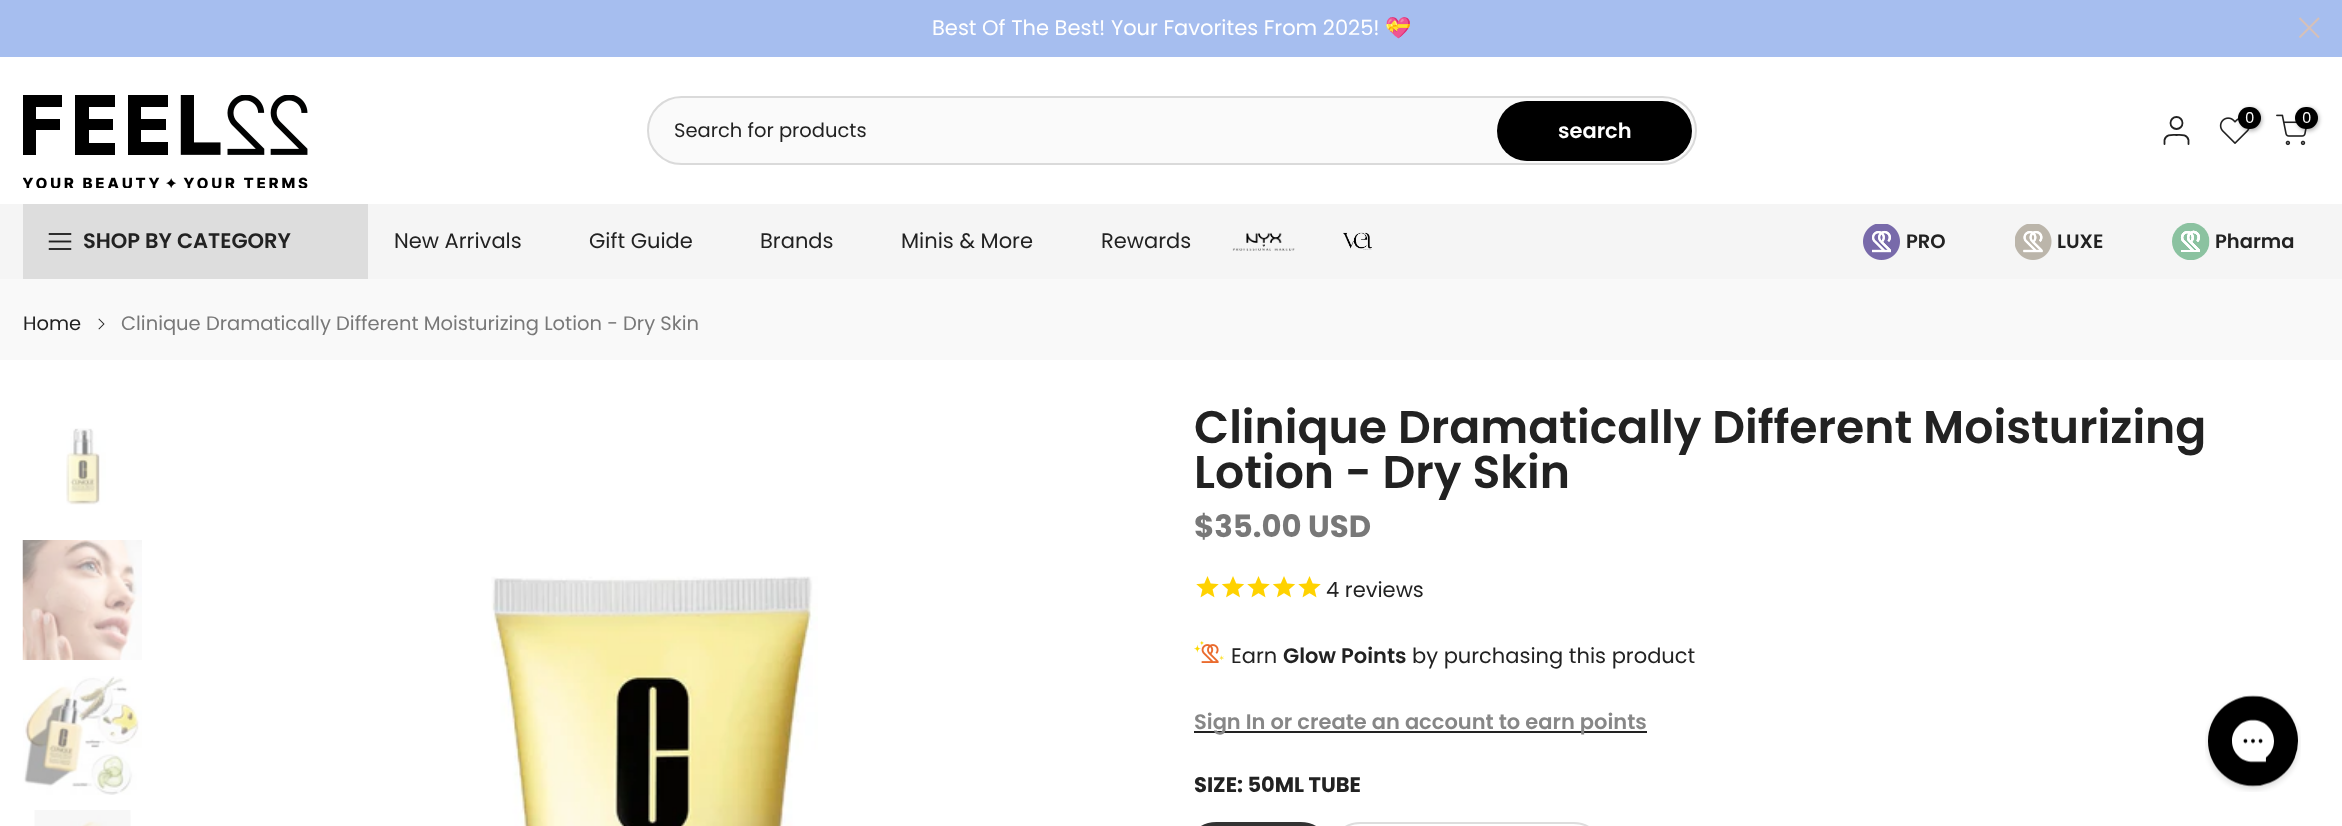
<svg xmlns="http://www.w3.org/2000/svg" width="2342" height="826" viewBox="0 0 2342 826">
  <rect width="100%" height="100%" fill="rgb(255,255,255)"/>
  <rect x="0" y="0" width="2342" height="57" fill="rgb(166,190,239)"/>
  <text x="932" y="35" font-family="Poppins" font-size="21" fill="rgb(255,255,255)">Best Of The Best! Your Favorites From 2025!</text>
  <text x="1385" y="35" font-family="Noto Color Emoji" font-size="21" fill="rgb(255,255,255)">💝</text>
  <path d="M2319 18L2299.5 37.5M2319 37.5L2299.5 18" fill="none" stroke="rgb(213,192,185)" stroke-width="2.1"/>
  <image x="23" y="95" width="285" height="93" href="pic1.png"/>
  <circle cx="2176.5" cy="123" r="6" fill="none" stroke="rgb(34,34,34)" stroke-width="1.8"/>
  <path d="M2188.5 144V140C2187 134 2181 135 2176.5 135C2172 135 2166 134 2164.5 140V144" fill="none" stroke="rgb(34,34,34)" stroke-width="1.8" stroke-linecap="round" stroke-linejoin="round"/>
  <image x="2219" y="117" width="31" height="27" href="pic2.png"/>
  <rect x="2240" y="108" width="22" height="23" rx="11" fill="rgba(0,0,0,0.3)" filter="blur(2px)"/>
  <rect x="2238" y="107" width="23" height="22" rx="11" fill="rgb(0,0,0)"/>
  <text x="2245" y="123" font-family="Poppins" font-size="15" fill="rgb(255,255,255)">0</text>
  <image x="2276" y="114" width="31" height="32" href="pic3.png"/>
  <rect x="2297" y="108" width="22" height="23" rx="11" fill="rgba(0,0,0,0.3)" filter="blur(2px)"/>
  <rect x="2295" y="107" width="23" height="22" rx="11" fill="rgb(0,0,0)"/>
  <text x="2302" y="123" font-family="Poppins" font-size="15" fill="rgb(255,255,255)">0</text>
  <rect x="648" y="97" width="1048" height="67" rx="33.5" fill="rgb(250,250,250)" stroke="rgb(218,218,218)" stroke-width="2"/>
  <text x="674" y="137" font-family="Poppins" font-size="19.5" fill="rgb(34,34,34)">Search for products</text>
  <rect x="1497" y="101" width="195" height="60" rx="30" fill="rgb(0,0,0)"/>
  <text x="1558" y="138" font-family="Poppins" font-size="21" font-weight="600" fill="rgb(255,255,255)">search</text>
  <rect x="0" y="204" width="2342" height="75" fill="rgb(245,245,245)"/>
  <rect x="23" y="204" width="345" height="75" fill="rgb(221,221,221)"/>
  <image x="48" y="233" width="24" height="17" href="pic4.png"/>
  <text x="83" y="248" font-family="Poppins" font-size="21" font-weight="600" fill="rgb(34,34,34)">SHOP BY CATEGORY</text>
  <g font-family="Poppins" font-size="21" fill="rgb(34,34,34)">
    <text x="394" y="248">New Arrivals</text>
    <text x="589" y="248">Gift Guide</text>
    <text x="760" y="248">Brands</text>
    <text x="901" y="248">Minis &amp; More</text>
    <text x="1101" y="248">Rewards</text>
  </g>
  <image x="1232" y="232" width="63" height="19" href="pic5.png"/>
  <image x="1343" y="232" width="29" height="18" href="pic6.png"/>
  <image x="1863" y="224" width="37" height="36" href="pic7.png"/>
  <text x="1906" y="248" font-family="Poppins" font-size="19.5" font-weight="600" fill="rgb(34,34,34)">PRO</text>
  <image x="2015" y="224" width="37" height="36" href="pic8.png"/>
  <text x="2057" y="248" font-family="Poppins" font-size="19.5" font-weight="600" fill="rgb(34,34,34)">LUXE</text>
  <image x="2172" y="223" width="38" height="37" href="pic9.png"/>
  <text x="2215" y="248" font-family="Poppins" font-size="19.5" font-weight="600" fill="rgb(34,34,34)">Pharma</text>
  <rect x="0" y="279" width="2342" height="81" fill="rgb(249,249,249)"/>
  <text x="23" y="330" font-family="Poppins" font-size="19.5" fill="rgb(34,34,34)">Home</text>
  <image x="98" y="318" width="7" height="12" href="pic10.png"/>
  <text x="121" y="330" font-family="Poppins" font-size="19.5" fill="rgb(120,120,120)">Clinique Dramatically Different Moisturizing Lotion - Dry Skin</text>
  <image x="66" y="428" width="40" height="77" href="pic11.png"/>
  <image x="22" y="540" width="120" height="120" href="pic12.png"/>
  <image x="23" y="676" width="119" height="119" href="pic13.png"/>
  <image x="34" y="810" width="97" height="16" href="pic14.png"/>
  <image x="491" y="576" width="327" height="250" href="pic15.png"/>
  <g font-family="Poppins" font-size="45.75" font-weight="600" fill="rgb(34,34,34)">
    <text>
      <tspan x="1194" y="443">Clinique Dramatically Different Moisturizing</tspan>
      <tspan x="1194" y="488">Lotion - Dry Skin</tspan>
    </text>
  </g>
  <text x="1194" y="537" font-family="Poppins" font-size="30.75" font-weight="bold" fill="rgb(120,120,120)">$35.00 USD</text>
  <image x="1196" y="576" width="23" height="22" href="pic16.png"/>
  <image x="1221" y="576" width="24" height="22" href="pic17.png"/>
  <image x="1247" y="576" width="23" height="22" href="pic16.png"/>
  <image x="1272" y="576" width="24" height="22" href="pic17.png"/>
  <image x="1298" y="576" width="23" height="22" href="pic16.png"/>
  <text x="1326" y="597" font-family="Poppins" font-size="21" fill="rgb(34,34,34)">4 reviews</text>
  <image x="1194" y="641" width="30" height="22" href="pic18.png"/>
  <text x="1231" y="663" font-family="Poppins" font-size="21" fill="rgb(34,34,34)">Earn</text>
  <text x="1283" y="663" font-family="Poppins" font-size="21" font-weight="600" fill="rgb(34,34,34)">Glow Points</text>
  <text x="1412" y="663" font-family="Poppins" font-size="21" fill="rgb(34,34,34)">by purchasing this product</text>
  <rect x="1194" y="731" width="453" height="2" fill="rgb(34,34,34)"/>
  <text x="1194" y="729" font-family="Poppins" font-size="21" font-weight="600" fill="rgb(135,135,135)">Sign In or create an account to earn points</text>
  <text x="1194" y="792" font-family="Poppins" font-size="21" font-weight="bold" fill="rgb(34,34,34)">SIZE: 50ML TUBE</text>
  <rect x="1195" y="823" width="127" height="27" rx="21.5" fill="rgb(51,51,51)" stroke="rgb(51,51,51)" stroke-width="2"/>
  <rect x="1339" y="823" width="256" height="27" rx="21.5" fill="none" stroke="rgb(221,221,221)" stroke-width="2"/>
  <image x="2205" y="695" width="96" height="97" href="pic19.png"/>
</svg>
